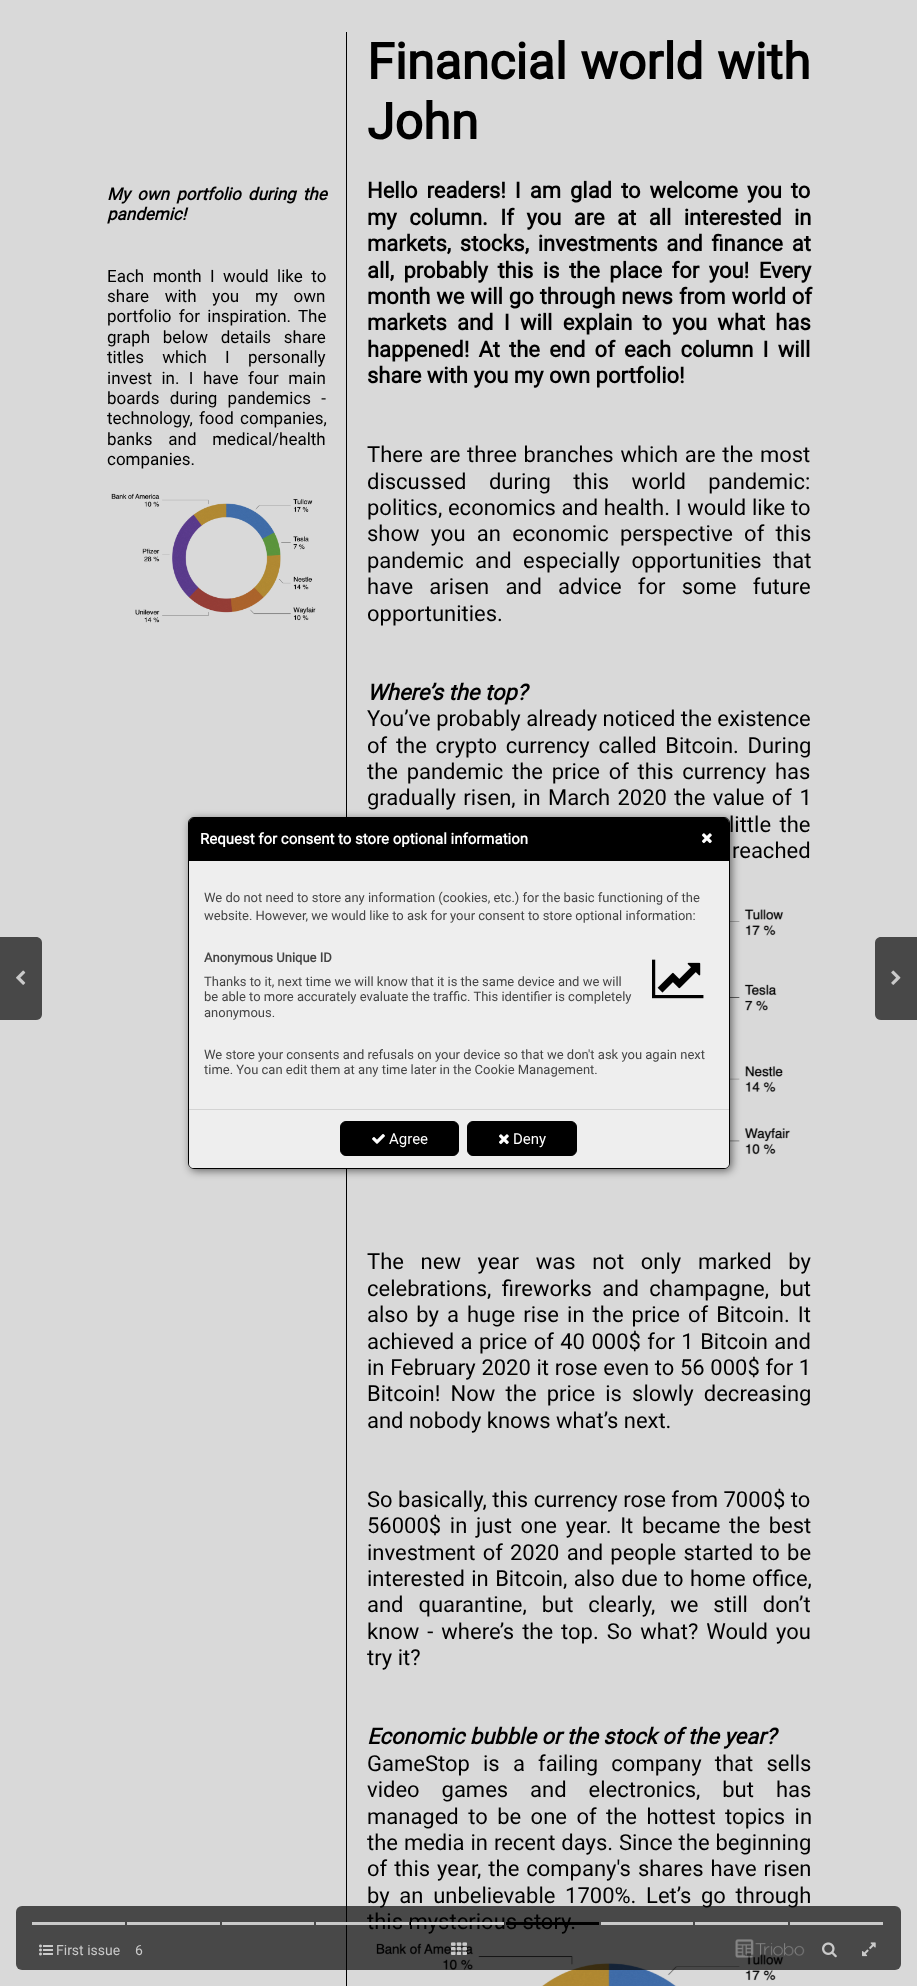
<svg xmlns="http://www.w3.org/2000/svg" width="917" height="1986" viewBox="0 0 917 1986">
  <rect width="100%" height="100%" fill="rgb(217,217,217)"/>
  <g font-family="Roboto" font-size="17" font-weight="bold" font-style="italic" fill="rgb(0,0,0)">
    <text>
      <tspan x="107" y="200" word-spacing="3">My own portfolio during the</tspan>
      <tspan x="107" y="220">pandemic!</tspan>
    </text>
  </g>
  <g font-family="Roboto" font-size="17" fill="rgb(0,0,0)">
    <text>
      <tspan x="107" y="282" word-spacing="4.25">Each month I would like to</tspan>
      <tspan x="107" y="302" word-spacing="11.5">share with you my own</tspan>
      <tspan x="107" y="322" word-spacing="3">portfolio for inspiration. The</tspan>
      <tspan x="107" y="343" word-spacing="8.5">graph below details share</tspan>
      <tspan x="107" y="363" word-spacing="14">titles which I personally</tspan>
      <tspan x="107" y="384" word-spacing="5.25">invest in. I have four main</tspan>
      <tspan x="107" y="404" word-spacing="6">boards during pandemics -</tspan>
      <tspan x="107" y="424" word-spacing="2">technology, food companies,</tspan>
      <tspan x="107" y="445" word-spacing="11.5">banks and medical/health</tspan>
      <tspan x="107" y="465">companies.</tspan>
    </text>
  </g>
  <image x="111" y="493" width="205" height="130" href="pic1.png"/>
  <rect x="346" y="32" width="1" height="1954" fill="rgb(0,0,0)"/>
  <g font-family="Roboto" font-size="50" font-weight="bold" fill="rgb(0,0,0)">
    <text>
      <tspan x="367" y="79" word-spacing="1">Financial world with</tspan>
      <tspan x="367" y="139">John</tspan>
    </text>
  </g>
  <g font-family="Roboto" font-size="22" font-weight="bold" fill="rgb(0,0,0)">
    <text>
      <tspan x="367" y="198" word-spacing="3.5">Hello readers! I am glad to welcome you to</tspan>
      <tspan x="367" y="225" word-spacing="7">my column. If you are at all interested in</tspan>
      <tspan x="367" y="251" word-spacing="3.25">markets, stocks, investments and finance at</tspan>
      <tspan x="367" y="278" word-spacing="4">all, probably this is the place for you! Every</tspan>
      <tspan x="367" y="304" word-spacing="0.5">month we will go through news from world of</tspan>
      <tspan x="367" y="330" word-spacing="4.75">markets and I will explain to you what has</tspan>
      <tspan x="367" y="357" word-spacing="3.75">happened! At the end of each column I will</tspan>
      <tspan x="367" y="383">share with you my own portfolio!</tspan>
    </text>
  </g>
  <g font-family="Roboto" font-size="22" fill="rgb(0,0,0)">
    <text>
      <tspan x="367" y="462" word-spacing="1.25">There are three branches which are the most</tspan>
      <tspan x="367" y="489" word-spacing="17">discussed during this world pandemic:</tspan>
      <tspan x="367" y="515" word-spacing="0.25">politics, economics and health. I would like to</tspan>
      <tspan x="367" y="541" word-spacing="5.75">show you an economic perspective of this</tspan>
      <tspan x="367" y="568" word-spacing="6">pandemic and especially opportunities that</tspan>
      <tspan x="367" y="594" word-spacing="10.75">have arisen and advice for some future</tspan>
      <tspan x="367" y="621">opportunities.</tspan>
    </text>
  </g>
  <text x="367" y="700" font-family="Roboto" font-size="22" font-weight="bold" font-style="italic" fill="rgb(0,0,0)">Where’s the top?</text>
  <g font-family="Roboto" font-size="22" fill="rgb(0,0,0)">
    <text>
      <tspan x="367" y="726">You’ve probably already noticed the existence</tspan>
      <tspan x="367" y="753" word-spacing="3.25">of the crypto currency called Bitcoin. During</tspan>
      <tspan x="367" y="779" word-spacing="3.25">the pandemic the price of this currency has</tspan>
      <tspan x="367" y="805" word-spacing="2">gradually risen, in March 2020 the value of 1</tspan>
    </text>
    <text x="729" y="832" word-spacing="3">little the</text>
    <text x="732" y="858" word-spacing="4">reached</text>
  </g>
  <image x="730" y="898" width="61" height="261" href="pic2.png"/>
  <g font-family="Roboto" font-size="22" fill="rgb(0,0,0)">
    <text>
      <tspan x="367" y="1269" word-spacing="11.25">The new year was not only marked by</tspan>
      <tspan x="367" y="1296" word-spacing="5">celebrations, fireworks and champagne, but</tspan>
      <tspan x="367" y="1322" word-spacing="2.6">also by a huge rise in the price of Bitcoin. It</tspan>
      <tspan x="367" y="1349" word-spacing="1">achieved a price of 40 000$ for 1 Bitcoin and</tspan>
      <tspan x="367" y="1375" word-spacing="0.25">in February 2020 it rose even to 56 000$ for 1</tspan>
      <tspan x="367" y="1401" word-spacing="4.75">Bitcoin! Now the price is slowly decreasing</tspan>
      <tspan x="367" y="1428">and nobody knows what’s next.</tspan>
    </text>
    <text>
      <tspan x="367" y="1507">So basically, this currency rose from 7000$ to</tspan>
      <tspan x="367" y="1533" word-spacing="3.25">56000$ in just one year. It became the best</tspan>
      <tspan x="367" y="1560" word-spacing="1.75">investment of 2020 and people started to be</tspan>
      <tspan x="367" y="1586" word-spacing="1">interested in Bitcoin, also due to home office,</tspan>
      <tspan x="367" y="1612" word-spacing="9.5">and quarantine, but clearly, we still don’t</tspan>
      <tspan x="367" y="1639" word-spacing="2.5">know - where’s the top. So what? Would you</tspan>
      <tspan x="367" y="1665">try it?</tspan>
    </text>
  </g>
  <text x="367" y="1744" font-family="Roboto" font-size="22" font-weight="bold" font-style="italic" fill="rgb(0,0,0)">Economic bubble or the stock of the year?</text>
  <g font-family="Roboto" font-size="22" fill="rgb(0,0,0)">
    <text>
      <tspan x="367" y="1771" word-spacing="7.75">GameStop is a failing company that sells</tspan>
      <tspan x="367" y="1797" word-spacing="16.5">video games and electronics, but has</tspan>
      <tspan x="367" y="1824" word-spacing="4">managed to be one of the hottest topics in</tspan>
      <tspan x="367" y="1850" word-spacing="0.5">the media in recent days. Since the beginning</tspan>
      <tspan x="367" y="1876" word-spacing="1.5">of this year, the company's shares have risen</tspan>
      <tspan x="367" y="1903" word-spacing="4.25">by an unbelievable 1700%. Let’s go through</tspan>
      <tspan x="367" y="1929">this mysterious story.</tspan>
    </text>
  </g>
  <image x="376" y="1943" width="408" height="43" href="pic3.png"/>
  <path d="M0 937H36C39.5 937 42 939.5 42 943V1014C42 1017.5 39.5 1020 36 1020H0Z" fill="rgb(72,72,72)"/>
  <image x="16" y="970" width="10" height="15" href="pic4.png"/>
  <path d="M881 937H917V1020H881C877.5 1020 875 1017.5 875 1014V943C875 939.5 877.5 937 881 937Z" fill="rgb(72,72,72)"/>
  <image x="891" y="970" width="10" height="15" href="pic5.png"/>
  <rect x="16" y="1906" width="885" height="64" rx="6" fill="rgba(0,0,0,0.67)"/>
  <rect x="32" y="1922" width="93" height="3" fill="rgb(202,202,202)"/>
  <rect x="127" y="1922" width="93" height="3" fill="rgb(202,202,202)"/>
  <rect x="222" y="1922" width="92" height="3" fill="rgb(202,202,202)"/>
  <rect x="316" y="1922" width="93" height="3" fill="rgb(202,202,202)"/>
  <rect x="411" y="1922" width="93" height="3" fill="rgb(202,202,202)"/>
  <rect x="601" y="1922" width="92" height="3" fill="rgb(202,202,202)"/>
  <rect x="695" y="1922" width="93" height="3" fill="rgb(202,202,202)"/>
  <rect x="790" y="1922" width="93" height="3" fill="rgb(202,202,202)"/>
  <rect x="506" y="1922" width="93" height="3" fill="rgb(0,0,0)"/>
  <image x="39" y="1944" width="14" height="12" href="pic6.png"/>
  <g font-family="Roboto" font-size="14" fill="rgb(202,202,202)">
    <text x="56" y="1955">First issue</text>
    <text x="135" y="1955">6</text>
  </g>
  <image x="451" y="1942" width="16" height="13" href="pic7.png"/>
  <image x="735" y="1939" width="70" height="19" href="pic8.png"/>
  <image x="822" y="1942" width="15" height="16" href="pic9.png"/>
  <image x="862" y="1942" width="14" height="15" href="pic10.png"/>
  <rect x="190" y="819" width="542" height="352" rx="6" fill="rgba(0,0,0,0.53)" filter="blur(4px)"/>
  <rect x="188.5" y="817.5" width="541" height="351" rx="5.5" fill="rgb(238,238,238)" stroke="rgb(0,0,0)"/>
  <path d="M194 818H724C727 818 729 820 729 823V861H189V823C189 820 191 818 194 818Z" fill="rgb(0,0,0)"/>
  <text x="200" y="844" font-family="Roboto" font-size="15" font-weight="bold" fill="rgb(255,255,255)">Request for consent to store optional information</text>
  <image x="702" y="833" width="10" height="11" href="pic11.png"/>
  <g font-family="Roboto" font-size="13" fill="rgb(68,68,68)">
    <text>
      <tspan x="204" y="902">We do not need to store any information (cookies, etc.) for the basic functioning of the</tspan>
      <tspan x="204" y="920">website. However, we would like to ask for your consent to store optional information:</tspan>
    </text>
  </g>
  <text x="204" y="962" font-family="Roboto" font-size="13" font-weight="bold" fill="rgb(68,68,68)">Anonymous Unique ID</text>
  <image x="652" y="959" width="52" height="40" href="pic12.png"/>
  <g font-family="Roboto" font-size="13" fill="rgb(68,68,68)">
    <text>
      <tspan x="204" y="986">Thanks to it, next time we will know that it is the same device and we will</tspan>
      <tspan x="204" y="1001">be able to more accurately evaluate the traffic. This identifier is completely</tspan>
      <tspan x="204" y="1017">anonymous.</tspan>
    </text>
    <text>
      <tspan x="204" y="1059">We store your consents and refusals on your device so that we don't ask you again next</tspan>
      <tspan x="204" y="1074">time. You can edit them at any time later in the Cookie Management.</tspan>
    </text>
  </g>
  <path d="M189 1109H729V1163C729 1166 727 1168 724 1168H194C191 1168 189 1166 189 1163Z" fill="rgb(238,238,238)"/>
  <rect x="189" y="1109" width="540" height="1" fill="rgb(211,211,211)"/>
  <rect x="340.5" y="1121.5" width="118" height="34" rx="5.5" fill="rgb(0,0,0)" stroke="rgb(0,0,0)"/>
  <image x="372" y="1134" width="13" height="10" href="pic13.png"/>
  <text x="389" y="1144" font-family="Roboto" font-size="15" fill="rgb(255,255,255)">Agree</text>
  <rect x="467.5" y="1121.5" width="109" height="34" rx="5.5" fill="rgb(0,0,0)" stroke="rgb(0,0,0)"/>
  <image x="499" y="1134" width="10" height="11" href="pic11.png"/>
  <text x="513" y="1144" font-family="Roboto" font-size="15" fill="rgb(255,255,255)">Deny</text>
</svg>
